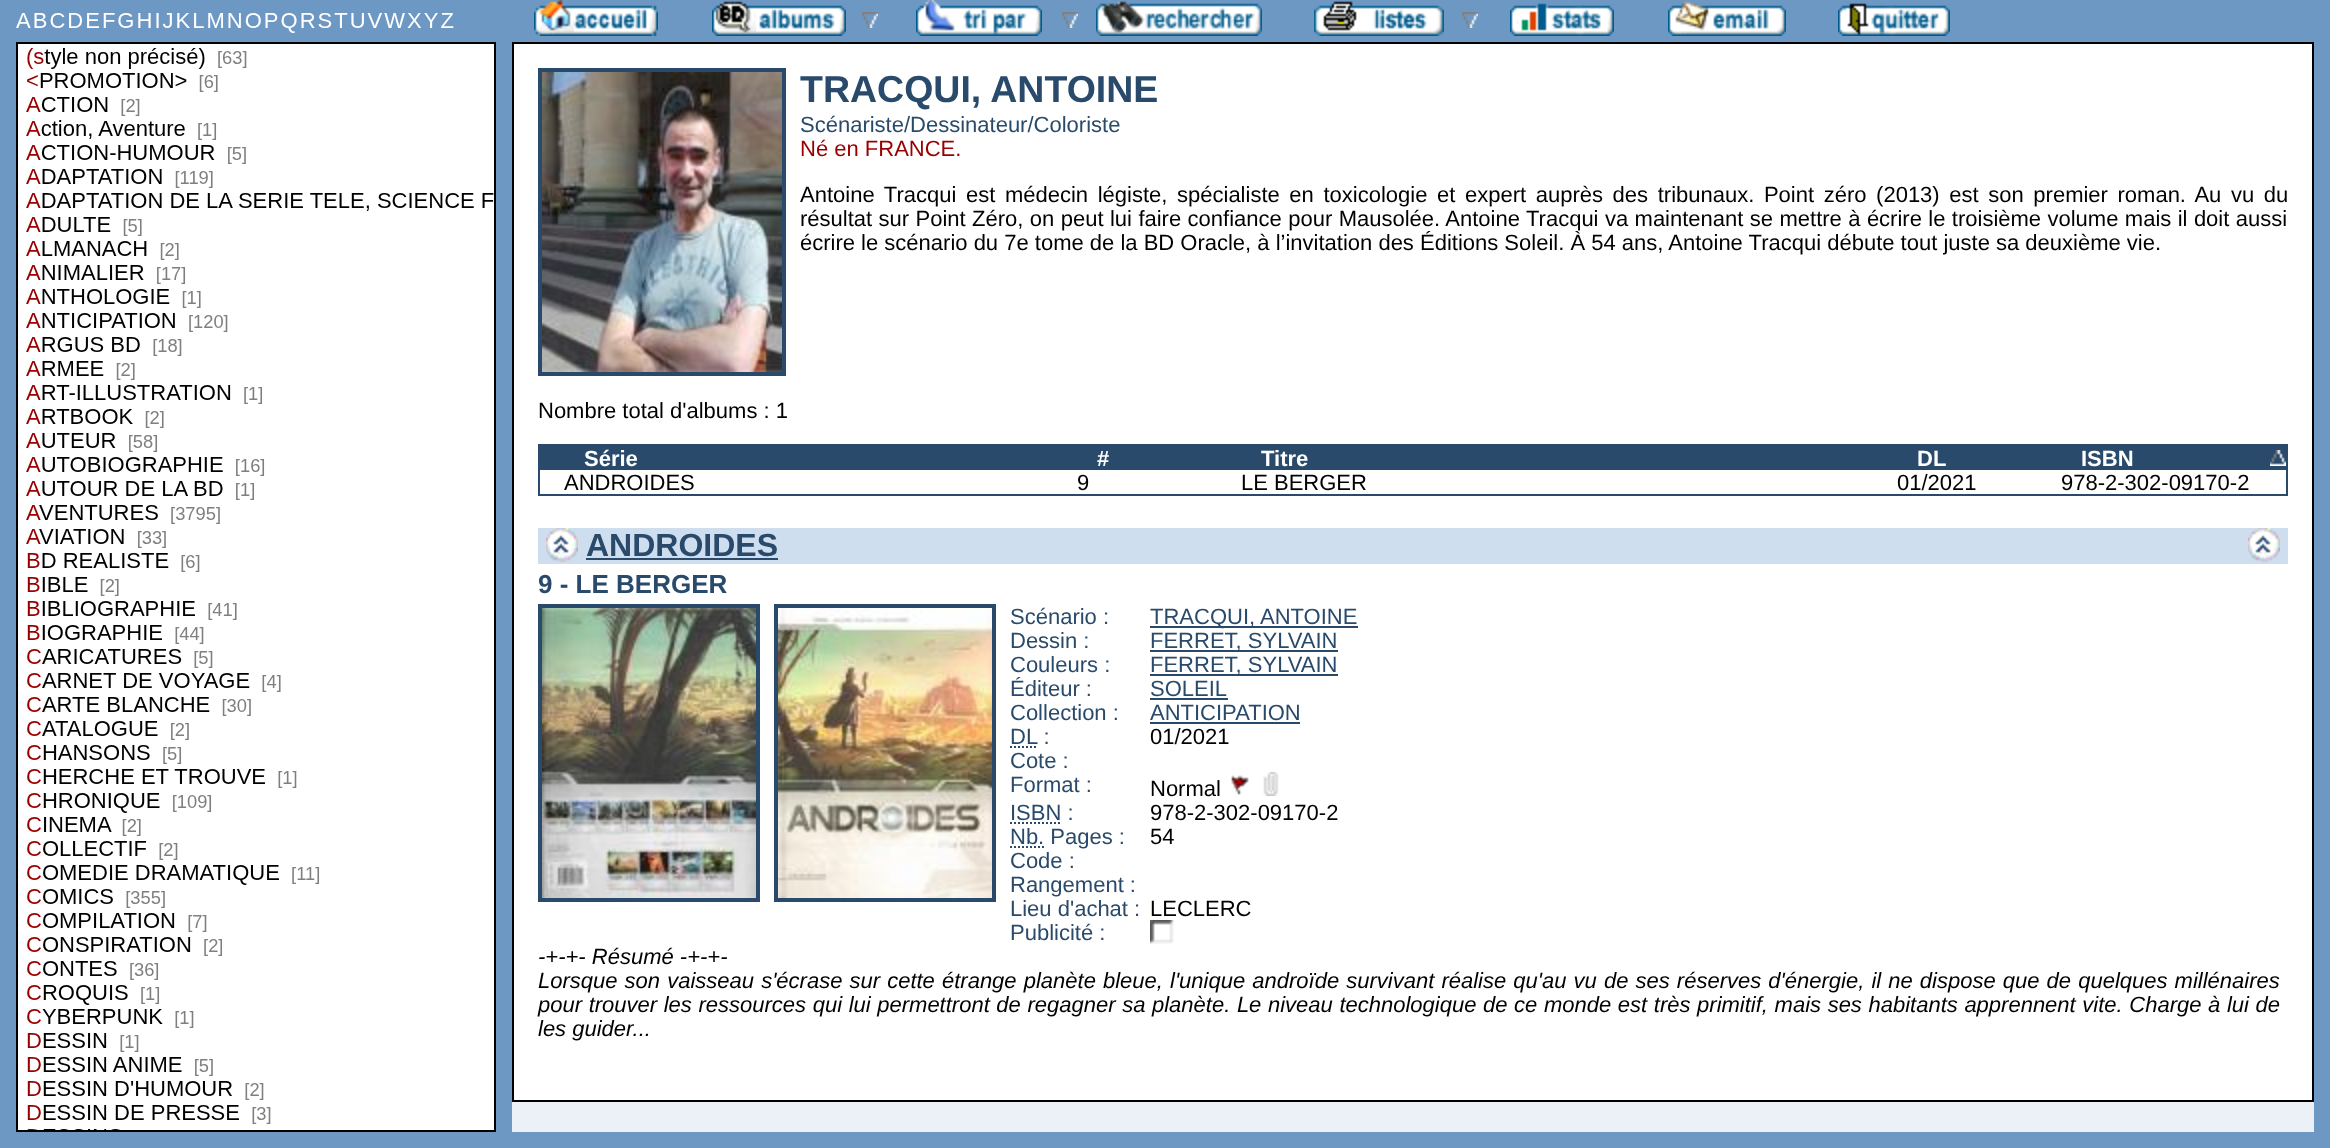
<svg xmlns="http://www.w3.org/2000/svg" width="2330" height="1148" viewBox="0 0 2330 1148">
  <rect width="100%" height="100%" fill="rgb(109,152,195)"/>
  <image x="16" y="13" width="480" height="1119" href="pic1.png"/>
  <image x="534" y="0" width="124" height="36" href="pic2.png"/>
  <image x="862" y="12" width="16" height="16" href="pic3.png"/>
  <image x="712" y="1" width="134" height="35" href="pic4.png"/>
  <image x="1062" y="12" width="16" height="16" href="pic3.png"/>
  <image x="916" y="0" width="126" height="36" href="pic5.png"/>
  <image x="1096" y="1" width="166" height="35" href="pic6.png"/>
  <image x="1462" y="12" width="16" height="16" href="pic3.png"/>
  <image x="1314" y="1" width="130" height="35" href="pic7.png"/>
  <image x="1510" y="3" width="104" height="33" href="pic8.png"/>
  <image x="1668" y="1" width="118" height="35" href="pic9.png"/>
  <image x="1838" y="3" width="112" height="33" href="pic10.png"/>
  <rect x="513" y="43" width="1800" height="1058" fill="rgb(255,255,255)" stroke="rgb(0,0,0)" stroke-width="2"/>
  <rect x="540" y="70" width="244" height="304" fill="none" stroke="rgb(41,74,107)" stroke-width="4"/>
  <image x="542" y="72" width="240" height="300" href="pic11.png"/>
  <text x="800" y="102" font-family="Liberation Sans" font-size="37.5" font-weight="bold" fill="rgb(41,74,107)">TRACQUI, ANTOINE</text>
  <text x="800" y="132" font-family="Liberation Sans" font-size="22" fill="rgb(41,74,107)">Scénariste/Dessinateur/Coloriste</text>
  <text x="800" y="156" font-family="Liberation Sans" font-size="22" fill="rgb(153,0,0)">Né en FRANCE.</text>
  <g font-family="Liberation Sans" font-size="22" fill="rgb(0,0,0)">
    <text>
      <tspan x="800" y="202" word-spacing="3.5">Antoine Tracqui est médecin légiste, spécialiste en toxicologie et expert auprès des tribunaux. Point zéro (2013) est son premier roman. Au vu du</tspan>
      <tspan x="800" y="226" word-spacing="0.3">résultat sur Point Zéro, on peut lui faire confiance pour Mausolée. Antoine Tracqui va maintenant se mettre à écrire le troisième volume mais il doit aussi</tspan>
      <tspan x="800" y="250">écrire le scénario du 7e tome de la BD Oracle, à l’invitation des Éditions Soleil. À 54 ans, Antoine Tracqui débute tout juste sa deuxième vie.</tspan>
    </text>
    <text x="538" y="418">Nombre total d'albums : 1</text>
  </g>
  <rect x="539" y="445" width="1748" height="50" fill="none" stroke="rgb(41,74,107)" stroke-width="2"/>
  <rect x="540" y="446" width="1746" height="24" fill="rgb(41,74,107)"/>
  <g font-family="Liberation Sans" font-size="22" font-weight="bold" fill="rgb(255,255,255)">
    <text x="584" y="466">Série</text>
    <text x="1097" y="466">#</text>
    <text x="1261" y="466">Titre</text>
    <text x="1917" y="466">DL</text>
  </g>
  <image x="2270" y="450" width="16" height="16" href="pic12.png"/>
  <text x="2081" y="466" font-family="Liberation Sans" font-size="22" font-weight="bold" fill="rgb(255,255,255)">ISBN</text>
  <g font-family="Liberation Sans" font-size="22" fill="rgb(0,0,0)">
    <text x="564" y="490">ANDROIDES</text>
    <text x="1077" y="490">9</text>
    <text x="1241" y="490">LE BERGER</text>
    <text x="1897" y="490">01/2021</text>
    <text x="2061" y="490">978-2-302-09170-2</text>
  </g>
  <rect x="538" y="528" width="1750" height="36" fill="rgb(206,222,239)"/>
  <image x="546" y="528" width="32" height="34" href="pic13.png"/>
  <image x="2248" y="528" width="32" height="34" href="pic13.png"/>
  <text x="586" y="556" font-family="Liberation Sans" font-size="32" font-weight="bold" fill="rgb(41,74,107)">ANDROIDES</text>
  <rect x="586" y="558" width="192" height="2" fill="rgb(41,74,107)"/>
  <text x="538" y="593" font-family="Liberation Sans" font-size="26" font-weight="bold" fill="rgb(41,74,107)">9 - LE BERGER</text>
  <rect x="540" y="606" width="218" height="294" fill="none" stroke="rgb(41,74,107)" stroke-width="4"/>
  <image x="542" y="608" width="214" height="290" href="pic14.png"/>
  <rect x="776" y="606" width="218" height="294" fill="none" stroke="rgb(41,74,107)" stroke-width="4"/>
  <image x="778" y="608" width="214" height="290" href="pic15.png"/>
  <text x="1010" y="624" font-family="Liberation Sans" font-size="22" fill="rgb(41,74,107)">Scénario :</text>
  <rect x="1150" y="626" width="208" height="2" fill="rgb(41,74,107)"/>
  <g font-family="Liberation Sans" font-size="22" fill="rgb(41,74,107)">
    <text x="1150" y="624">TRACQUI, ANTOINE</text>
    <text x="1010" y="648">Dessin :</text>
  </g>
  <rect x="1150" y="650" width="188" height="2" fill="rgb(41,74,107)"/>
  <g font-family="Liberation Sans" font-size="22" fill="rgb(41,74,107)">
    <text x="1150" y="648">FERRET, SYLVAIN</text>
    <text x="1010" y="672">Couleurs :</text>
  </g>
  <rect x="1150" y="674" width="188" height="2" fill="rgb(41,74,107)"/>
  <g font-family="Liberation Sans" font-size="22" fill="rgb(41,74,107)">
    <text x="1150" y="672">FERRET, SYLVAIN</text>
    <text x="1010" y="696">Éditeur :</text>
    <text x="1150" y="696">SOLEIL</text>
  </g>
  <rect x="1150" y="698" width="78" height="2" fill="rgb(41,74,107)"/>
  <g font-family="Liberation Sans" font-size="22" fill="rgb(41,74,107)">
    <text x="1010" y="720">Collection :</text>
    <text x="1150" y="720">ANTICIPATION</text>
  </g>
  <rect x="1150" y="722" width="150" height="2" fill="rgb(41,74,107)"/>
  <text x="1010" y="744" font-family="Liberation Sans" font-size="22" fill="rgb(41,74,107)">DL :</text>
  <path d="M1010 747H1038" fill="none" stroke="rgb(41,74,107)" stroke-width="2" stroke-dasharray="2 2"/>
  <text x="1150" y="744" font-family="Liberation Sans" font-size="22" fill="rgb(0,0,0)">01/2021</text>
  <g font-family="Liberation Sans" font-size="22" fill="rgb(41,74,107)">
    <text>
      <tspan x="1010" y="768">Cote :</tspan>
      <tspan x="1010" y="792">Format :</tspan>
    </text>
  </g>
  <text x="1150" y="796" font-family="Liberation Sans" font-size="22" fill="rgb(0,0,0)">Normal</text>
  <image x="1231" y="775" width="18" height="20" href="pic16.png"/>
  <image x="1263" y="772" width="16" height="24" href="pic17.png"/>
  <text x="1010" y="820" font-family="Liberation Sans" font-size="22" fill="rgb(41,74,107)">ISBN :</text>
  <path d="M1010 823H1061.5" fill="none" stroke="rgb(41,74,107)" stroke-width="2" stroke-dasharray="2 2"/>
  <text x="1150" y="820" font-family="Liberation Sans" font-size="22" fill="rgb(0,0,0)">978-2-302-09170-2</text>
  <path d="M1010 847H1044" fill="none" stroke="rgb(41,74,107)" stroke-width="2" stroke-dasharray="2 2"/>
  <text x="1010" y="844" font-family="Liberation Sans" font-size="22" fill="rgb(41,74,107)">Nb. Pages :</text>
  <text x="1150" y="844" font-family="Liberation Sans" font-size="22" fill="rgb(0,0,0)">54</text>
  <g font-family="Liberation Sans" font-size="22" fill="rgb(41,74,107)">
    <text>
      <tspan x="1010" y="868">Code :</tspan>
      <tspan x="1010" y="892">Rangement :</tspan>
      <tspan x="1010" y="916">Lieu d'achat :</tspan>
    </text>
  </g>
  <text x="1150" y="916" font-family="Liberation Sans" font-size="22" fill="rgb(0,0,0)">LECLERC</text>
  <text x="1010" y="940" font-family="Liberation Sans" font-size="22" fill="rgb(41,74,107)">Publicité :</text>
  <image x="1150" y="920" width="24" height="24" href="pic18.png"/>
  <g font-family="Liberation Sans" font-size="22" font-style="italic" fill="rgb(0,0,0)">
    <text>
      <tspan x="538" y="964">-+-+- Résumé -+-+-</tspan>
      <tspan x="538" y="988" word-spacing="1">Lorsque son vaisseau s'écrase sur cette étrange planète bleue, l'unique androïde survivant réalise qu'au vu de ses réserves d'énergie, il ne dispose que de quelques millénaires</tspan>
      <tspan x="538" y="1012" word-spacing="0.5">pour trouver les ressources qui lui permettront de regagner sa planète. Le niveau technologique de ce monde est très primitif, mais ses habitants apprennent vite. Charge à lui de</tspan>
      <tspan x="538" y="1036">les guider...</tspan>
    </text>
  </g>
  <rect x="512" y="1102" width="1802" height="30" fill="rgb(235,241,247)"/>
</svg>
